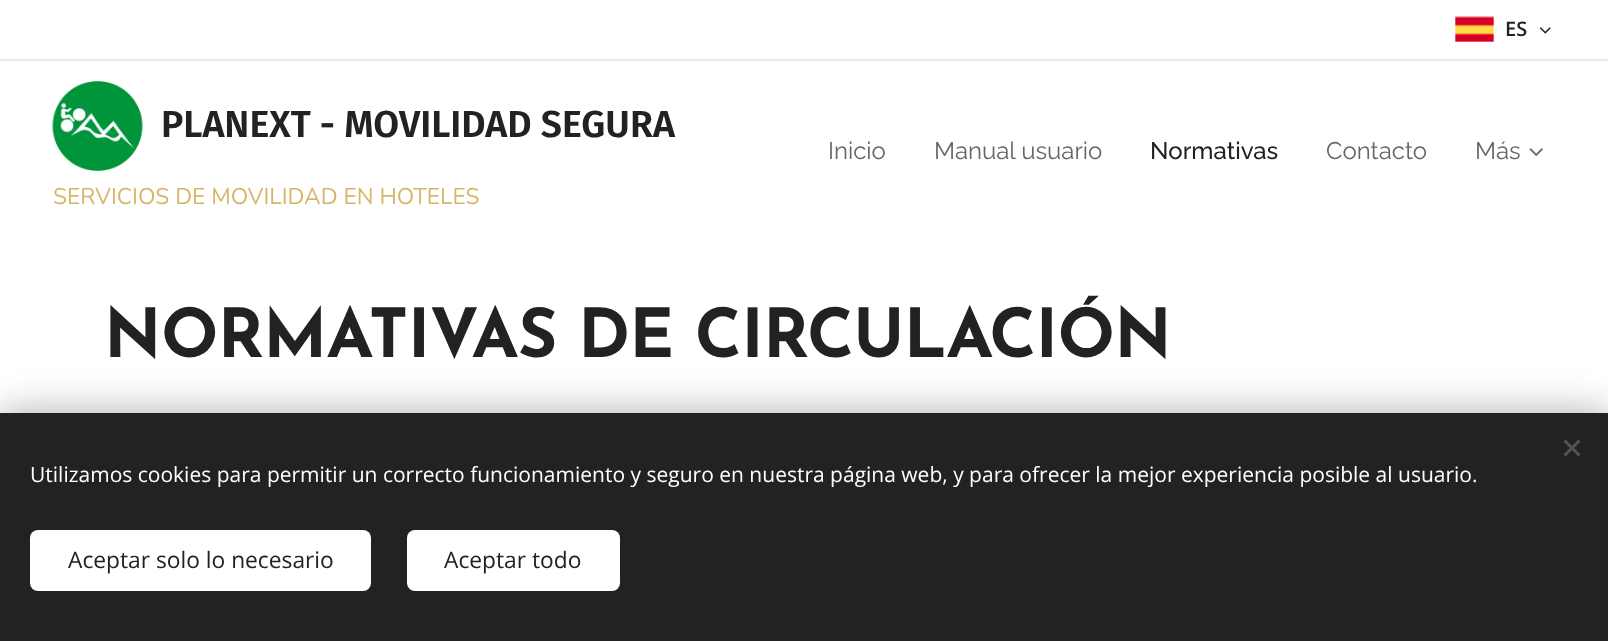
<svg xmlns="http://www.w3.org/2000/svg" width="1608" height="641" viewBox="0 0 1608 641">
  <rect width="100%" height="100%" fill="rgb(255,255,255)"/>
  <image x="1455" y="16" width="39" height="26" href="pic1.png"/>
  <text x="1505" y="36" font-family="Open Sans" font-size="20" font-weight="600" fill="rgb(34,34,34)">ES</text>
  <image x="1539" y="27" width="12" height="7" href="pic2.png"/>
  <rect x="0" y="59" width="1608" height="2" fill="rgb(232,232,232)"/>
  <image x="52" y="81" width="91" height="90" href="pic3.png"/>
  <text x="161" y="137" font-family="Fira Sans" font-size="37.5" font-weight="600" fill="rgb(34,34,34)">PLANEXT - MOVILIDAD SEGURA</text>
  <text x="53" y="204" font-family="Nunito" font-size="22.75" fill="rgb(217,181,105)">SERVICIOS DE MOVILIDAD EN HOTELES</text>
  <g font-family="Raleway" font-size="24" fill="rgb(102,102,102)">
    <text x="828" y="159">Inicio</text>
    <text x="934" y="159">Manual usuario</text>
  </g>
  <text x="1150" y="159" font-family="Raleway" font-size="24" font-weight="500" fill="rgb(34,34,34)">Normativas</text>
  <g font-family="Raleway" font-size="24" fill="rgb(102,102,102)">
    <text x="1326" y="159">Contacto</text>
    <text x="1475" y="159">Más</text>
  </g>
  <image x="1529" y="148" width="14" height="8" href="pic4.png"/>
  <text x="104" y="357" font-family="Josefin Sans" font-size="67.5" font-weight="bold" letter-spacing="-0.7" fill="rgb(34,34,34)">NORMATIVAS DE CIRCULACIÓN</text>
  <rect x="0" y="413" width="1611" height="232" fill="rgba(0,0,0,0.33)" filter="blur(19px)"/>
  <rect x="0" y="413" width="1608" height="228" fill="rgb(34,34,34)"/>
  <path d="M1563.5 454.5L1578.5 439.5L1580.5 441.5L1565.5 456.5Z" fill="rgb(85,85,85)"/>
  <path d="M1565.5 439.5L1580.5 454.5L1578.5 456.5L1563.5 441.5Z" fill="rgb(85,85,85)"/>
  <text x="30" y="482" font-family="Open Sans" font-size="21" fill="rgb(255,255,255)">Utilizamos cookies para permitir un correcto funcionamiento y seguro en nuestra página web, y para ofrecer la mejor experiencia posible al usuario.</text>
  <rect x="30" y="530" width="341" height="61" rx="8" fill="rgb(255,255,255)"/>
  <text x="68" y="568" font-family="Open Sans" font-size="22.75" fill="rgb(34,34,34)">Aceptar solo lo necesario</text>
  <rect x="407" y="530" width="213" height="61" rx="8" fill="rgb(255,255,255)"/>
  <text x="444" y="568" font-family="Open Sans" font-size="22.75" fill="rgb(34,34,34)">Aceptar todo</text>
</svg>
